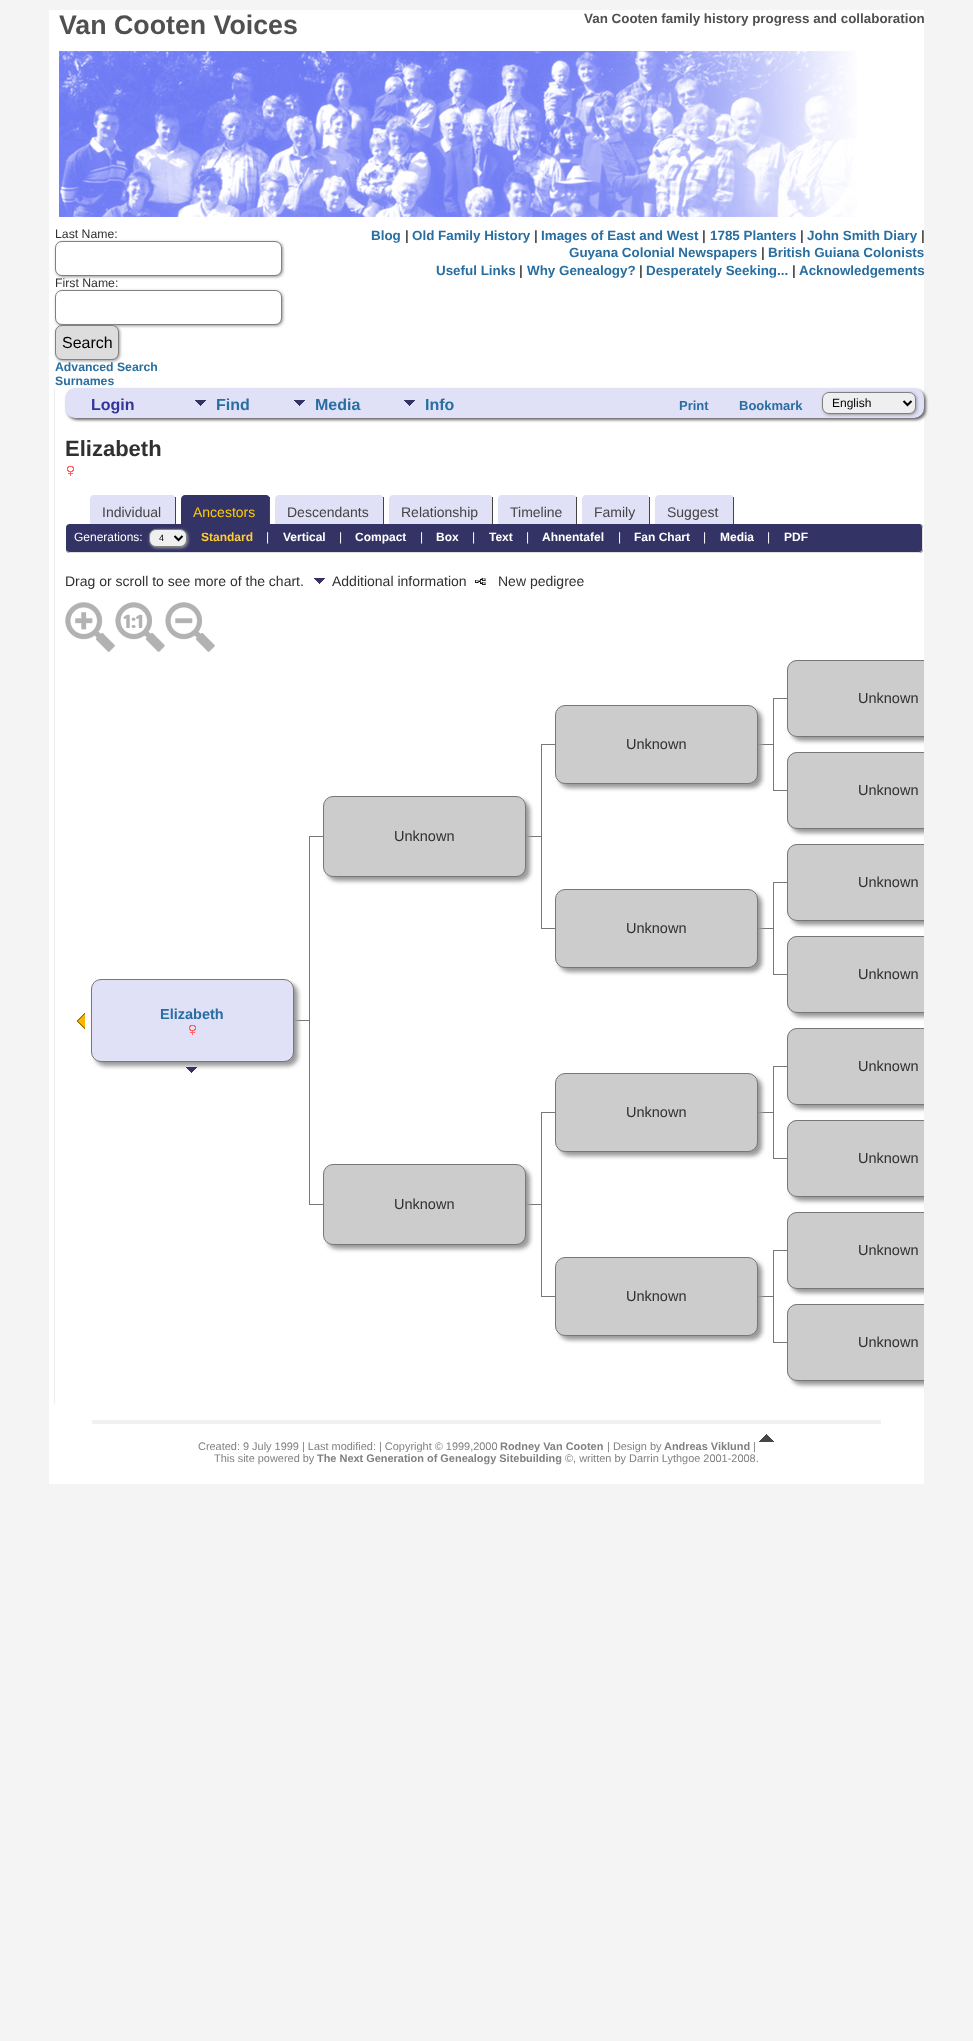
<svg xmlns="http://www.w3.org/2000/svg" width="973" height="2041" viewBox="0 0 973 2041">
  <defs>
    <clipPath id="clip1"><rect x="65" y="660" width="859" height="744"/></clipPath>
    <clipPath id="clip2"><rect x="65" y="660" width="859" height="744"/></clipPath>
  </defs>
  <rect width="100%" height="100%" fill="rgb(244,244,244)"/>
  <rect x="49" y="10" width="875" height="1474" fill="rgb(255,255,255)"/>
  <text x="59" y="34" font-family="Liberation Sans" font-size="26.75" font-weight="bold" fill="rgb(80,80,80)">Van Cooten Voices</text>
  <text x="584" y="23" font-family="Liberation Sans" font-size="13.4" font-weight="bold" fill="rgb(80,80,80)">Van Cooten family history progress and collaboration</text>
  <image x="59" y="51" width="798" height="166" href="pic1.png"/>
  <text x="55" y="238" font-family="Liberation Sans" font-size="12.25" fill="rgb(48,48,48)">Last Name:</text>
  <rect x="56" y="242" width="227" height="35" rx="7" fill="rgb(153,153,153)" filter="blur(1.5px)"/>
  <rect x="55.5" y="241.5" width="226" height="34" rx="6.5" fill="rgb(255,255,255)" stroke="rgb(128,128,128)"/>
  <text x="55" y="287" font-family="Liberation Sans" font-size="12.25" fill="rgb(48,48,48)">First Name:</text>
  <rect x="56" y="291" width="227" height="35" rx="7" fill="rgb(153,153,153)" filter="blur(1.5px)"/>
  <rect x="55.5" y="290.5" width="226" height="34" rx="6.5" fill="rgb(255,255,255)" stroke="rgb(128,128,128)"/>
  <rect x="56" y="326" width="64" height="35" rx="7" fill="rgb(153,153,153)" filter="blur(1.5px)"/>
  <rect x="55.5" y="325.5" width="63" height="34" rx="6.5" fill="rgb(221,221,221)" stroke="rgb(128,128,128)"/>
  <text x="62" y="348" font-family="Liberation Sans" font-size="16" fill="rgb(0,0,0)">Search</text>
  <text x="55" y="371" font-family="Liberation Sans" font-size="12.25" font-weight="bold" fill="rgb(40,110,160)">Advanced Search</text>
  <rect x="67" y="390" width="859" height="30" rx="10" fill="rgb(102,102,102)" filter="blur(1.5px)"/>
  <text x="55" y="385" font-family="Liberation Sans" font-size="12.25" font-weight="bold" fill="rgb(40,110,160)">Surnames</text>
  <text x="371" y="240" font-family="Liberation Sans" font-size="13.4" font-weight="bold" fill="rgb(40,110,160)">Blog</text>
  <text x="405" y="240" font-family="Liberation Sans" font-size="13.4" font-weight="bold" fill="rgb(80,80,80)">|</text>
  <text x="412" y="240" font-family="Liberation Sans" font-size="13.4" font-weight="bold" fill="rgb(40,110,160)">Old Family History</text>
  <text x="534" y="240" font-family="Liberation Sans" font-size="13.4" font-weight="bold" fill="rgb(80,80,80)">|</text>
  <text x="541" y="240" font-family="Liberation Sans" font-size="13.4" font-weight="bold" fill="rgb(40,110,160)">Images of East and West</text>
  <text x="702" y="240" font-family="Liberation Sans" font-size="13.4" font-weight="bold" fill="rgb(80,80,80)">|</text>
  <text x="710" y="240" font-family="Liberation Sans" font-size="13.4" font-weight="bold" fill="rgb(40,110,160)">1785 Planters</text>
  <text x="800" y="240" font-family="Liberation Sans" font-size="13.4" font-weight="bold" fill="rgb(80,80,80)">|</text>
  <text x="807" y="240" font-family="Liberation Sans" font-size="13.4" font-weight="bold" fill="rgb(40,110,160)">John Smith Diary</text>
  <text x="921" y="240" font-family="Liberation Sans" font-size="13.4" font-weight="bold" fill="rgb(80,80,80)">|</text>
  <text x="569" y="257" font-family="Liberation Sans" font-size="13.4" font-weight="bold" fill="rgb(40,110,160)">Guyana Colonial Newspapers</text>
  <text x="761" y="257" font-family="Liberation Sans" font-size="13.4" font-weight="bold" fill="rgb(80,80,80)">|</text>
  <g font-family="Liberation Sans" font-size="13.4" font-weight="bold" fill="rgb(40,110,160)">
    <text x="768" y="257">British Guiana Colonists</text>
    <text x="436" y="275">Useful Links</text>
  </g>
  <text x="519" y="275" font-family="Liberation Sans" font-size="13.4" font-weight="bold" fill="rgb(80,80,80)">|</text>
  <text x="527" y="275" font-family="Liberation Sans" font-size="13.4" font-weight="bold" fill="rgb(40,110,160)">Why Genealogy?</text>
  <text x="639" y="275" font-family="Liberation Sans" font-size="13.4" font-weight="bold" fill="rgb(80,80,80)">|</text>
  <text x="646" y="275" font-family="Liberation Sans" font-size="13.4" font-weight="bold" fill="rgb(40,110,160)">Desperately Seeking...</text>
  <text x="792" y="275" font-family="Liberation Sans" font-size="13.4" font-weight="bold" fill="rgb(80,80,80)">|</text>
  <text x="799" y="275" font-family="Liberation Sans" font-size="13.4" font-weight="bold" fill="rgb(40,110,160)">Acknowledgements</text>
  <rect x="54" y="388" width="1" height="1016" fill="rgb(240,240,240)"/>
  <rect x="65" y="388" width="859" height="30" rx="10" fill="rgb(224,224,247)"/>
  <text x="91" y="410" font-family="Liberation Sans" font-size="16" font-weight="bold" fill="rgb(51,51,153)">Login</text>
  <image x="195" y="400" width="11" height="6" href="pic2.png"/>
  <text x="216" y="410" font-family="Liberation Sans" font-size="16" font-weight="bold" fill="rgb(40,110,160)">Find</text>
  <image x="294" y="400" width="11" height="6" href="pic2.png"/>
  <text x="315" y="410" font-family="Liberation Sans" font-size="16" font-weight="bold" fill="rgb(40,110,160)">Media</text>
  <image x="404" y="400" width="11" height="6" href="pic2.png"/>
  <text x="425" y="410" font-family="Liberation Sans" font-size="16" font-weight="bold" fill="rgb(40,110,160)">Info</text>
  <g font-family="Liberation Sans" font-size="13" font-weight="bold" fill="rgb(40,110,160)">
    <text x="679" y="410">Print</text>
    <text x="739" y="410">Bookmark</text>
  </g>
  <rect x="823" y="393" width="94" height="22" rx="7" fill="rgb(153,153,153)" filter="blur(1.5px)"/>
  <rect x="822.5" y="392.5" width="93" height="21" rx="6.5" fill="rgb(239,239,239)" stroke="rgb(128,128,128)"/>
  <path d="M903.5 401L907.5 405L911.5 401" fill="none" stroke="rgb(0,0,0)" stroke-width="2"/>
  <text x="832" y="407" font-family="Liberation Sans" font-size="12" fill="rgb(0,0,0)">English</text>
  <text x="65" y="456" font-family="Liberation Sans" font-size="22" font-weight="bold" fill="rgb(48,48,48)">Elizabeth</text>
  <image x="67" y="466" width="7" height="10" href="pic3.png"/>
  <path d="M94 495H172C174 495 176 497 176 499V524H90V499C90 497 92 495 94 495Z" fill="rgb(224,224,247)"/>
  <rect x="175" y="497" width="1" height="27" fill="rgb(68,68,68)"/>
  <text x="102" y="517" font-family="Liberation Sans" font-size="14" fill="rgb(68,68,68)">Individual</text>
  <path d="M185 495H266C268 495 270 497 270 499V524H181V499C181 497 183 495 185 495Z" fill="rgb(51,51,102)"/>
  <rect x="269" y="497" width="1" height="27" fill="rgb(68,68,68)"/>
  <text x="193" y="517" font-family="Liberation Sans" font-size="14" fill="rgb(255,204,0)">Ancestors</text>
  <path d="M279 495H380C382 495 384 497 384 499V524H275V499C275 497 277 495 279 495Z" fill="rgb(224,224,247)"/>
  <rect x="383" y="497" width="1" height="27" fill="rgb(68,68,68)"/>
  <text x="287" y="517" font-family="Liberation Sans" font-size="14" fill="rgb(68,68,68)">Descendants</text>
  <path d="M393 495H489C491 495 493 497 493 499V524H389V499C389 497 391 495 393 495Z" fill="rgb(224,224,247)"/>
  <rect x="492" y="497" width="1" height="27" fill="rgb(68,68,68)"/>
  <text x="401" y="517" font-family="Liberation Sans" font-size="14" fill="rgb(68,68,68)">Relationship</text>
  <path d="M502 495H573C575 495 577 497 577 499V524H498V499C498 497 500 495 502 495Z" fill="rgb(224,224,247)"/>
  <rect x="576" y="497" width="1" height="27" fill="rgb(68,68,68)"/>
  <text x="510" y="517" font-family="Liberation Sans" font-size="14" fill="rgb(68,68,68)">Timeline</text>
  <path d="M586 495H646C648 495 650 497 650 499V524H582V499C582 497 584 495 586 495Z" fill="rgb(224,224,247)"/>
  <rect x="649" y="497" width="1" height="27" fill="rgb(68,68,68)"/>
  <text x="594" y="517" font-family="Liberation Sans" font-size="14" fill="rgb(68,68,68)">Family</text>
  <path d="M659 495H730C732 495 734 497 734 499V524H655V499C655 497 657 495 659 495Z" fill="rgb(224,224,247)"/>
  <rect x="733" y="497" width="1" height="27" fill="rgb(68,68,68)"/>
  <text x="667" y="517" font-family="Liberation Sans" font-size="14" fill="rgb(68,68,68)">Suggest</text>
  <rect x="66" y="524" width="857" height="29" rx="4" fill="rgb(51,51,102)"/>
  <path d="M70 524H919C921 524 923 526 923 528V549C923 551 921 553 919 553H70C68 553 66 551 66 549V528C66 526 68 524 70 524ZM70 524H919C921 524 922 526 922 528V549C922 551 921 552 919 552H70C68 552 66 551 66 549V528C66 526 68 524 70 524Z" fill="rgb(221,221,221)" fill-rule="evenodd"/>
  <text x="74" y="541" font-family="Liberation Sans" font-size="12" fill="rgb(255,255,255)">Generations:</text>
  <rect x="150" y="530" width="38" height="18" rx="7" fill="rgb(153,153,153)" filter="blur(1.5px)"/>
  <rect x="149.5" y="529.5" width="37" height="17" rx="6.5" fill="rgb(239,239,239)" stroke="rgb(128,128,128)"/>
  <path d="M174.5 536L178.5 540L182.5 536" fill="none" stroke="rgb(0,0,0)" stroke-width="2"/>
  <text x="159" y="541" font-family="Liberation Sans" font-size="9" fill="rgb(0,0,0)">4</text>
  <text x="201" y="541" font-family="Liberation Sans" font-size="12" font-weight="bold" fill="rgb(255,204,51)">Standard</text>
  <text x="266" y="541" font-family="Liberation Sans" font-size="12" fill="rgb(255,255,255)">|</text>
  <text x="283" y="541" font-family="Liberation Sans" font-size="12" font-weight="bold" fill="rgb(255,255,255)">Vertical</text>
  <text x="339" y="541" font-family="Liberation Sans" font-size="12" fill="rgb(255,255,255)">|</text>
  <text x="355" y="541" font-family="Liberation Sans" font-size="12" font-weight="bold" fill="rgb(255,255,255)">Compact</text>
  <text x="420" y="541" font-family="Liberation Sans" font-size="12" fill="rgb(255,255,255)">|</text>
  <text x="436" y="541" font-family="Liberation Sans" font-size="12" font-weight="bold" fill="rgb(255,255,255)">Box</text>
  <text x="472" y="541" font-family="Liberation Sans" font-size="12" fill="rgb(255,255,255)">|</text>
  <text x="489" y="541" font-family="Liberation Sans" font-size="12" font-weight="bold" fill="rgb(255,255,255)">Text</text>
  <text x="526" y="541" font-family="Liberation Sans" font-size="12" fill="rgb(255,255,255)">|</text>
  <text x="542" y="541" font-family="Liberation Sans" font-size="12" font-weight="bold" fill="rgb(255,255,255)">Ahnentafel</text>
  <text x="618" y="541" font-family="Liberation Sans" font-size="12" fill="rgb(255,255,255)">|</text>
  <text x="634" y="541" font-family="Liberation Sans" font-size="12" font-weight="bold" fill="rgb(255,255,255)">Fan Chart</text>
  <text x="703" y="541" font-family="Liberation Sans" font-size="12" fill="rgb(255,255,255)">|</text>
  <text x="720" y="541" font-family="Liberation Sans" font-size="12" font-weight="bold" fill="rgb(255,255,255)">Media</text>
  <text x="767" y="541" font-family="Liberation Sans" font-size="12" fill="rgb(255,255,255)">|</text>
  <text x="784" y="541" font-family="Liberation Sans" font-size="12" font-weight="bold" fill="rgb(255,255,255)">PDF</text>
  <text x="65" y="586" font-family="Liberation Sans" font-size="14" fill="rgb(48,48,48)">Drag or scroll to see more of the chart.</text>
  <image x="314" y="578" width="11" height="6" href="pic4.png"/>
  <text x="332" y="586" font-family="Liberation Sans" font-size="14" fill="rgb(48,48,48)">Additional information</text>
  <image x="475" y="578" width="11" height="7" href="pic5.png"/>
  <text x="498" y="586" font-family="Liberation Sans" font-size="14" fill="rgb(48,48,48)">New pedigree</text>
  <image x="65" y="602" width="50" height="50" href="pic6.png"/>
  <image x="115" y="602" width="50" height="50" href="pic7.png"/>
  <image x="165" y="602" width="50" height="50" href="pic8.png"/>
  <rect x="773" y="698" width="17" height="1" fill="rgb(119,119,119)"/>
  <g clip-path="url(#clip1)">
    <rect x="791" y="664" width="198" height="77" rx="10" fill="rgb(153,153,153)" filter="blur(2px)"/>
  </g>
  <path d="M797 660H924V737H797C791.5 737 787 732.5 787 727V670C787 664.5 791.5 660 797 660Z" fill="rgb(204,204,204)"/>
  <g clip-path="url(#clip2)">
    <rect x="787.5" y="660.5" width="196" height="76" rx="9.5" fill="none" stroke="rgb(119,119,119)"/>
  </g>
  <text x="858" y="703" font-family="Liberation Sans" font-size="14.5" fill="rgb(48,48,48)">Unknown</text>
  <rect x="541" y="744" width="17" height="1" fill="rgb(119,119,119)"/>
  <rect x="757" y="744" width="16" height="1" fill="rgb(119,119,119)"/>
  <rect x="559" y="709" width="203" height="79" rx="10" fill="rgb(153,153,153)" filter="blur(2px)"/>
  <rect x="555.5" y="705.5" width="202" height="78" rx="9.5" fill="rgb(204,204,204)" stroke="rgb(119,119,119)"/>
  <text x="626" y="749" font-family="Liberation Sans" font-size="14.5" fill="rgb(48,48,48)">Unknown</text>
  <rect x="773" y="698" width="1" height="47" fill="rgb(119,119,119)"/>
  <rect x="541" y="744" width="1" height="93" fill="rgb(119,119,119)"/>
  <rect x="773" y="790" width="17" height="1" fill="rgb(119,119,119)"/>
  <rect x="773" y="745" width="1" height="46" fill="rgb(119,119,119)"/>
  <g clip-path="url(#clip1)">
    <rect x="791" y="756" width="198" height="77" rx="10" fill="rgb(153,153,153)" filter="blur(2px)"/>
  </g>
  <path d="M797 752H924V829H797C791.5 829 787 824.5 787 819V762C787 756.5 791.5 752 797 752Z" fill="rgb(204,204,204)"/>
  <g clip-path="url(#clip2)">
    <rect x="787.5" y="752.5" width="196" height="76" rx="9.5" fill="none" stroke="rgb(119,119,119)"/>
  </g>
  <text x="858" y="795" font-family="Liberation Sans" font-size="14.5" fill="rgb(48,48,48)">Unknown</text>
  <rect x="309" y="836" width="17" height="1" fill="rgb(119,119,119)"/>
  <rect x="525" y="836" width="16" height="1" fill="rgb(119,119,119)"/>
  <rect x="327" y="800" width="203" height="81" rx="10" fill="rgb(153,153,153)" filter="blur(2px)"/>
  <rect x="323.5" y="796.5" width="202" height="80" rx="9.5" fill="rgb(204,204,204)" stroke="rgb(119,119,119)"/>
  <text x="394" y="841" font-family="Liberation Sans" font-size="14.5" fill="rgb(48,48,48)">Unknown</text>
  <rect x="309" y="836" width="1" height="185" fill="rgb(119,119,119)"/>
  <rect x="541" y="928" width="17" height="1" fill="rgb(119,119,119)"/>
  <rect x="541" y="837" width="1" height="92" fill="rgb(119,119,119)"/>
  <rect x="773" y="882" width="17" height="1" fill="rgb(119,119,119)"/>
  <g clip-path="url(#clip1)">
    <rect x="791" y="848" width="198" height="77" rx="10" fill="rgb(153,153,153)" filter="blur(2px)"/>
  </g>
  <path d="M797 844H924V921H797C791.5 921 787 916.5 787 911V854C787 848.5 791.5 844 797 844Z" fill="rgb(204,204,204)"/>
  <g clip-path="url(#clip2)">
    <rect x="787.5" y="844.5" width="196" height="76" rx="9.5" fill="none" stroke="rgb(119,119,119)"/>
  </g>
  <text x="858" y="887" font-family="Liberation Sans" font-size="14.5" fill="rgb(48,48,48)">Unknown</text>
  <rect x="757" y="928" width="16" height="1" fill="rgb(119,119,119)"/>
  <rect x="559" y="893" width="203" height="79" rx="10" fill="rgb(153,153,153)" filter="blur(2px)"/>
  <rect x="555.5" y="889.5" width="202" height="78" rx="9.5" fill="rgb(204,204,204)" stroke="rgb(119,119,119)"/>
  <text x="626" y="933" font-family="Liberation Sans" font-size="14.5" fill="rgb(48,48,48)">Unknown</text>
  <rect x="773" y="882" width="1" height="47" fill="rgb(119,119,119)"/>
  <rect x="773" y="974" width="17" height="1" fill="rgb(119,119,119)"/>
  <rect x="773" y="929" width="1" height="46" fill="rgb(119,119,119)"/>
  <g clip-path="url(#clip1)">
    <rect x="791" y="940" width="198" height="77" rx="10" fill="rgb(153,153,153)" filter="blur(2px)"/>
  </g>
  <path d="M797 936H924V1013H797C791.5 1013 787 1008.5 787 1003V946C787 940.5 791.5 936 797 936Z" fill="rgb(204,204,204)"/>
  <g clip-path="url(#clip2)">
    <rect x="787.5" y="936.5" width="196" height="76" rx="9.5" fill="none" stroke="rgb(119,119,119)"/>
  </g>
  <text x="858" y="979" font-family="Liberation Sans" font-size="14.5" fill="rgb(48,48,48)">Unknown</text>
  <image x="77" y="1013" width="8" height="16" href="pic9.png"/>
  <rect x="293" y="1020" width="16" height="1" fill="rgb(119,119,119)"/>
  <rect x="95" y="983" width="203" height="83" rx="10" fill="rgb(153,153,153)" filter="blur(2px)"/>
  <rect x="91.5" y="979.5" width="202" height="82" rx="9.5" fill="rgb(224,224,247)" stroke="rgb(119,119,119)"/>
  <text x="160" y="1019" font-family="Liberation Sans" font-size="14.5" font-weight="bold" fill="rgb(40,110,160)">Elizabeth</text>
  <image x="189" y="1025" width="7" height="10" href="pic10.png"/>
  <image x="186" y="1067" width="11" height="6" href="pic11.png"/>
  <rect x="309" y="1204" width="17" height="1" fill="rgb(119,119,119)"/>
  <rect x="309" y="1021" width="1" height="184" fill="rgb(119,119,119)"/>
  <rect x="773" y="1066" width="17" height="1" fill="rgb(119,119,119)"/>
  <g clip-path="url(#clip1)">
    <rect x="791" y="1032" width="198" height="77" rx="10" fill="rgb(153,153,153)" filter="blur(2px)"/>
  </g>
  <path d="M797 1028H924V1105H797C791.5 1105 787 1100.5 787 1095V1038C787 1032.5 791.5 1028 797 1028Z" fill="rgb(204,204,204)"/>
  <g clip-path="url(#clip2)">
    <rect x="787.5" y="1028.5" width="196" height="76" rx="9.5" fill="none" stroke="rgb(119,119,119)"/>
  </g>
  <text x="858" y="1071" font-family="Liberation Sans" font-size="14.5" fill="rgb(48,48,48)">Unknown</text>
  <rect x="541" y="1112" width="17" height="1" fill="rgb(119,119,119)"/>
  <rect x="757" y="1112" width="16" height="1" fill="rgb(119,119,119)"/>
  <rect x="559" y="1077" width="203" height="79" rx="10" fill="rgb(153,153,153)" filter="blur(2px)"/>
  <rect x="555.5" y="1073.5" width="202" height="78" rx="9.5" fill="rgb(204,204,204)" stroke="rgb(119,119,119)"/>
  <text x="626" y="1117" font-family="Liberation Sans" font-size="14.5" fill="rgb(48,48,48)">Unknown</text>
  <rect x="773" y="1066" width="1" height="47" fill="rgb(119,119,119)"/>
  <rect x="541" y="1112" width="1" height="93" fill="rgb(119,119,119)"/>
  <rect x="773" y="1158" width="17" height="1" fill="rgb(119,119,119)"/>
  <rect x="773" y="1113" width="1" height="46" fill="rgb(119,119,119)"/>
  <g clip-path="url(#clip1)">
    <rect x="791" y="1124" width="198" height="77" rx="10" fill="rgb(153,153,153)" filter="blur(2px)"/>
  </g>
  <path d="M797 1120H924V1197H797C791.5 1197 787 1192.5 787 1187V1130C787 1124.5 791.5 1120 797 1120Z" fill="rgb(204,204,204)"/>
  <g clip-path="url(#clip2)">
    <rect x="787.5" y="1120.5" width="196" height="76" rx="9.5" fill="none" stroke="rgb(119,119,119)"/>
  </g>
  <text x="858" y="1163" font-family="Liberation Sans" font-size="14.5" fill="rgb(48,48,48)">Unknown</text>
  <rect x="525" y="1204" width="16" height="1" fill="rgb(119,119,119)"/>
  <rect x="327" y="1168" width="203" height="81" rx="10" fill="rgb(153,153,153)" filter="blur(2px)"/>
  <rect x="323.5" y="1164.5" width="202" height="80" rx="9.5" fill="rgb(204,204,204)" stroke="rgb(119,119,119)"/>
  <text x="394" y="1209" font-family="Liberation Sans" font-size="14.5" fill="rgb(48,48,48)">Unknown</text>
  <rect x="541" y="1296" width="17" height="1" fill="rgb(119,119,119)"/>
  <rect x="541" y="1205" width="1" height="92" fill="rgb(119,119,119)"/>
  <rect x="773" y="1250" width="17" height="1" fill="rgb(119,119,119)"/>
  <g clip-path="url(#clip1)">
    <rect x="791" y="1216" width="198" height="77" rx="10" fill="rgb(153,153,153)" filter="blur(2px)"/>
  </g>
  <path d="M797 1212H924V1289H797C791.5 1289 787 1284.5 787 1279V1222C787 1216.5 791.5 1212 797 1212Z" fill="rgb(204,204,204)"/>
  <g clip-path="url(#clip2)">
    <rect x="787.5" y="1212.5" width="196" height="76" rx="9.5" fill="none" stroke="rgb(119,119,119)"/>
  </g>
  <text x="858" y="1255" font-family="Liberation Sans" font-size="14.5" fill="rgb(48,48,48)">Unknown</text>
  <rect x="757" y="1296" width="16" height="1" fill="rgb(119,119,119)"/>
  <rect x="559" y="1261" width="203" height="79" rx="10" fill="rgb(153,153,153)" filter="blur(2px)"/>
  <rect x="555.5" y="1257.5" width="202" height="78" rx="9.5" fill="rgb(204,204,204)" stroke="rgb(119,119,119)"/>
  <text x="626" y="1301" font-family="Liberation Sans" font-size="14.5" fill="rgb(48,48,48)">Unknown</text>
  <rect x="773" y="1250" width="1" height="47" fill="rgb(119,119,119)"/>
  <rect x="773" y="1342" width="17" height="1" fill="rgb(119,119,119)"/>
  <rect x="773" y="1297" width="1" height="46" fill="rgb(119,119,119)"/>
  <g clip-path="url(#clip1)">
    <rect x="791" y="1308" width="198" height="77" rx="10" fill="rgb(153,153,153)" filter="blur(2px)"/>
  </g>
  <path d="M797 1304H924V1381H797C791.5 1381 787 1376.5 787 1371V1314C787 1308.5 791.5 1304 797 1304Z" fill="rgb(204,204,204)"/>
  <g clip-path="url(#clip2)">
    <rect x="787.5" y="1304.5" width="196" height="76" rx="9.5" fill="none" stroke="rgb(119,119,119)"/>
  </g>
  <text x="858" y="1347" font-family="Liberation Sans" font-size="14.5" fill="rgb(48,48,48)">Unknown</text>
  <rect x="92" y="1420" width="789" height="4" fill="rgb(240,240,240)"/>
  <image x="759" y="1434" width="15" height="8" href="pic12.png"/>
  <text x="198" y="1450" font-family="Liberation Sans" font-size="10.95" fill="rgb(128,128,128)">Created: 9 July 1999 | Last modified: | Copyright © 1999,2000</text>
  <text x="500" y="1450" font-family="Liberation Sans" font-size="10.95" font-weight="bold" fill="rgb(128,128,128)">Rodney Van Cooten</text>
  <text x="607" y="1450" font-family="Liberation Sans" font-size="10.95" fill="rgb(128,128,128)">| Design by</text>
  <text x="664" y="1450" font-family="Liberation Sans" font-size="10.95" font-weight="bold" fill="rgb(128,128,128)">Andreas Viklund</text>
  <g font-family="Liberation Sans" font-size="10.95" fill="rgb(128,128,128)">
    <text x="753" y="1450">|</text>
    <text x="214" y="1462">This site powered by</text>
  </g>
  <text x="317" y="1462" font-family="Liberation Sans" font-size="10.95" font-weight="bold" fill="rgb(128,128,128)">The Next Generation of Genealogy Sitebuilding</text>
  <rect x="379" y="1452" width="158" height="1" fill="rgb(255,255,255)"/>
  <text x="565" y="1462" font-family="Liberation Sans" font-size="10.95" fill="rgb(128,128,128)">©, written by Darrin Lythgoe 2001-2008.</text>
</svg>
